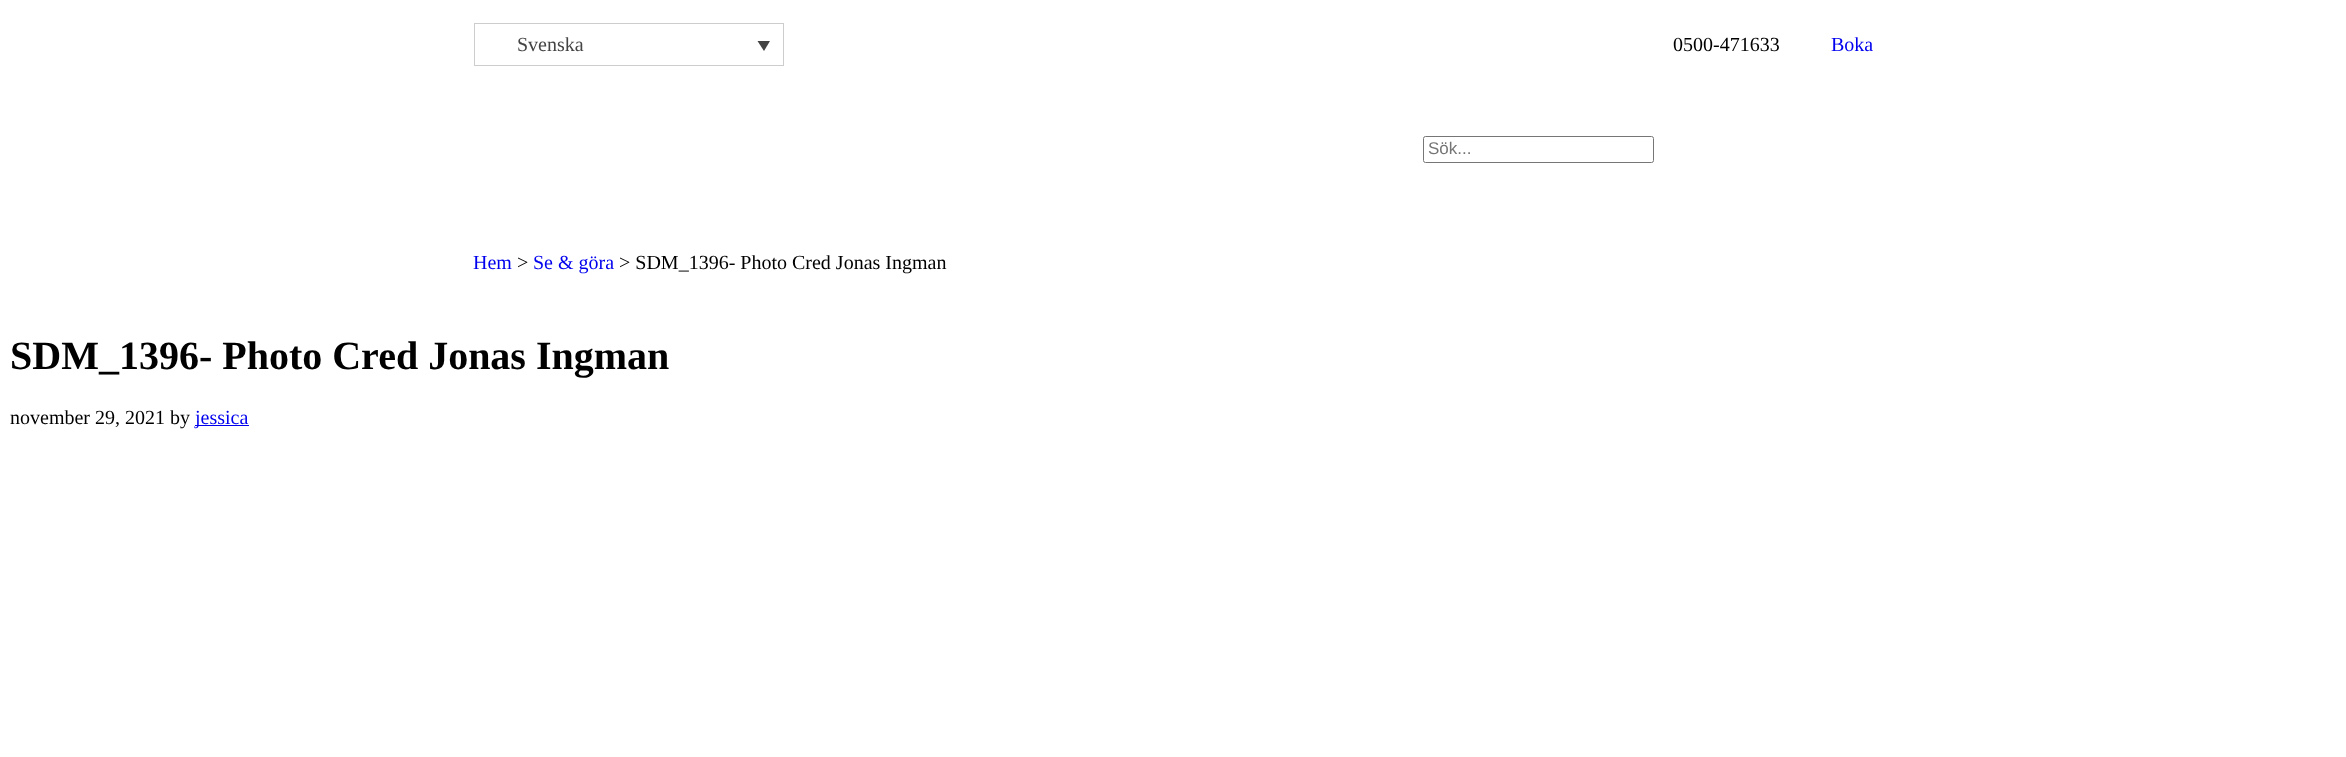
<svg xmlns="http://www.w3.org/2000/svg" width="2346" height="757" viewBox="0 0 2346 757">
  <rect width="100%" height="100%" fill="rgb(255,255,255)"/>
  <rect x="474.5" y="23.5" width="309" height="42" fill="none" stroke="rgb(205,205,205)"/>
  <text x="517" y="51" font-family="Liberation Serif" font-size="20" fill="rgb(68,68,68)">Svenska</text>
  <path d="M757.5 41H770L764 51Z" fill="rgb(68,68,68)"/>
  <text x="1673" y="51" font-family="Liberation Serif" font-size="20" fill="rgb(0,0,0)">0500-471633</text>
  <text x="1831" y="51" font-family="Liberation Serif" font-size="20" fill="rgb(0,0,238)">Boka</text>
  <rect x="1423.5" y="136.5" width="230" height="26" rx="2" fill="none" stroke="rgb(118,118,118)"/>
  <text x="1428" y="154" font-family="Liberation Sans" font-size="17" fill="rgb(117,117,117)">Sök...</text>
  <text x="473" y="269" font-family="Liberation Serif" font-size="20" fill="rgb(0,0,238)">Hem</text>
  <text x="517" y="269" font-family="Liberation Serif" font-size="20" fill="rgb(0,0,0)">&gt;</text>
  <text x="533" y="269" font-family="Liberation Serif" font-size="20" fill="rgb(0,0,238)">Se &amp; göra</text>
  <text x="619" y="269" font-family="Liberation Serif" font-size="20" fill="rgb(0,0,0)">&gt; SDM_1396- Photo Cred Jonas Ingman</text>
  <text x="10" y="369" font-family="Liberation Serif" font-size="40" font-weight="bold" fill="rgb(0,0,0)">SDM_1396- Photo Cred Jonas Ingman</text>
  <text x="10" y="424" font-family="Liberation Serif" font-size="20" fill="rgb(0,0,0)">november 29, 2021 by</text>
  <rect x="195" y="425" width="54" height="1" fill="rgb(0,0,238)"/>
  <text x="195" y="424" font-family="Liberation Serif" font-size="20" fill="rgb(0,0,238)">jessica</text>
</svg>
